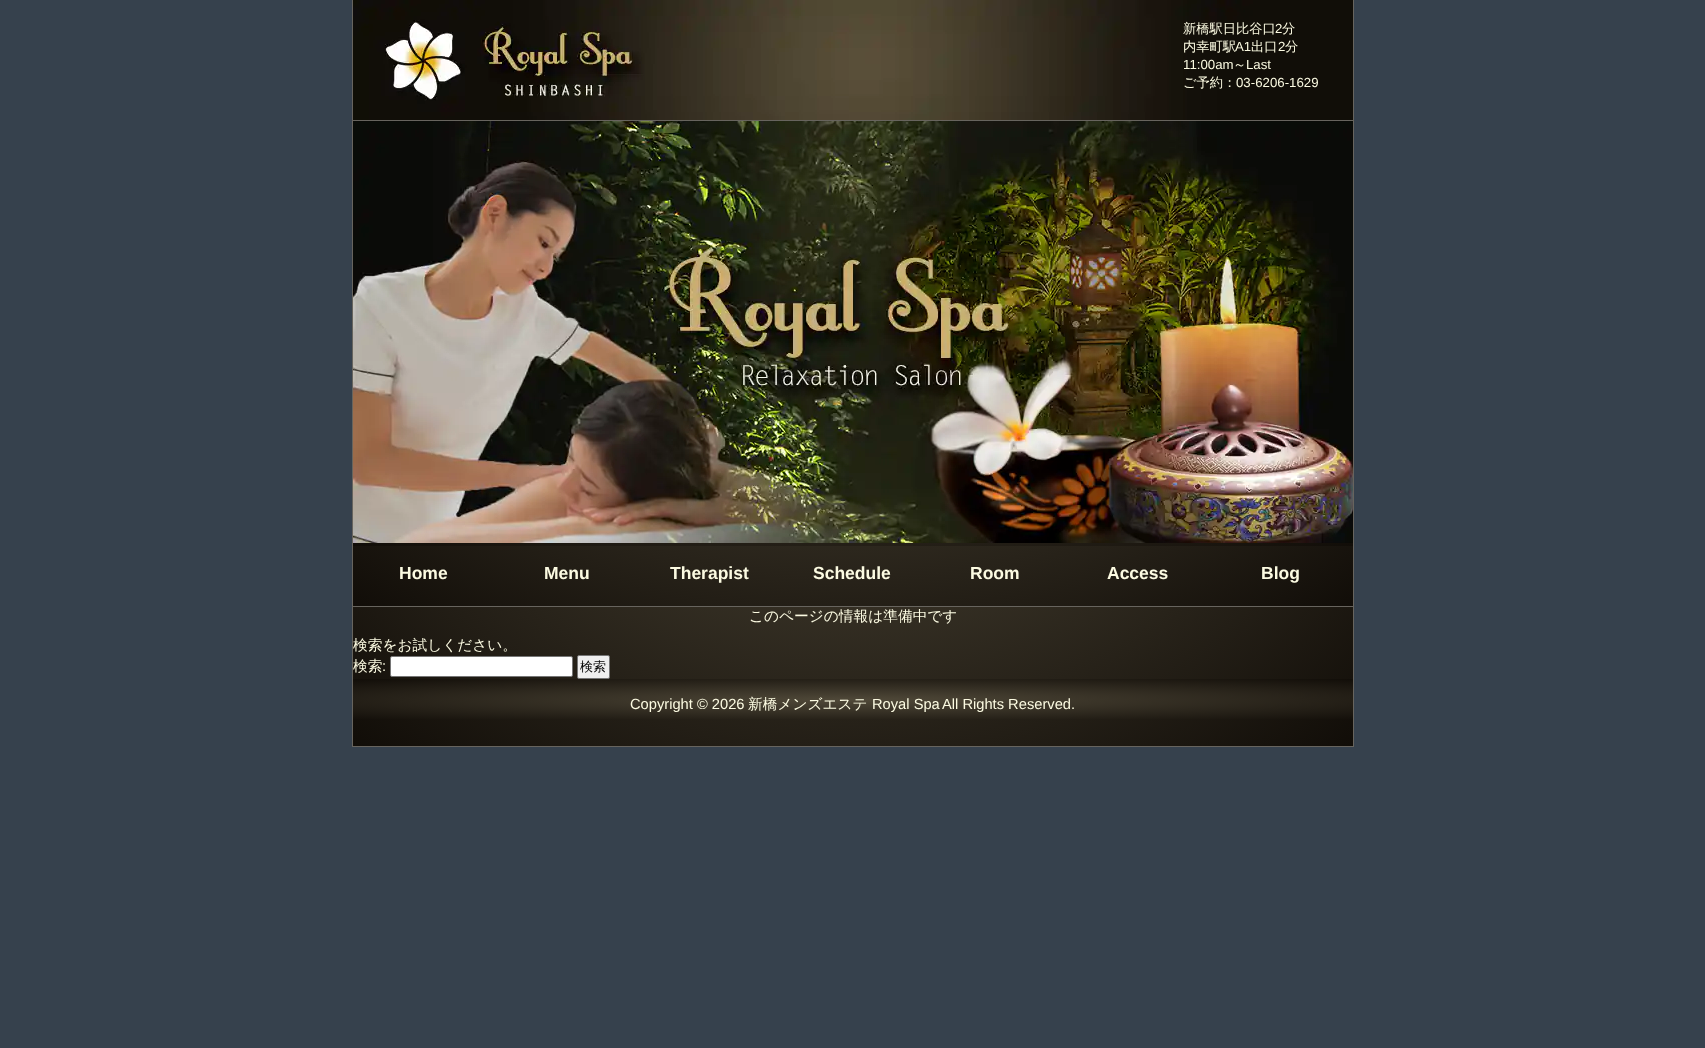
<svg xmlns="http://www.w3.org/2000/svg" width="1705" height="1048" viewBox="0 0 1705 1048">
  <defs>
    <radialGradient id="g1" gradientUnits="userSpaceOnUse" cx="0" cy="0" r="1" gradientTransform="matrix(707 0 0 528 853 373)"><stop offset="0" stop-color="rgb(80,73,57)"/><stop offset="1" stop-color="rgb(17,13,8)"/></radialGradient>
    <radialGradient id="g2" gradientUnits="userSpaceOnUse" cx="0" cy="0" r="1" gradientTransform="matrix(707 0 0 429 853 304)"><stop offset="0" stop-color="rgb(80,73,57)"/><stop offset="1" stop-color="rgb(17,13,8)"/></radialGradient>
    <radialGradient id="g3" gradientUnits="userSpaceOnUse" cx="0" cy="0" r="1" gradientTransform="matrix(707 0 0 301 853 334)"><stop offset="0" stop-color="rgb(80,73,57)"/><stop offset="1" stop-color="rgb(17,13,8)"/></radialGradient>
    <radialGradient id="g4" gradientUnits="userSpaceOnUse" cx="0" cy="0" r="1" gradientTransform="matrix(707 0 0 30 853 700)"><stop offset="0" stop-color="rgb(80,73,57)"/><stop offset="1" stop-color="rgb(17,13,8)"/></radialGradient>
  </defs>
  <rect width="100%" height="100%" fill="rgb(54,65,77)"/>
  <rect x="353" y="607" width="1000" height="139" fill="url(#g1)"/>
  <rect x="1353" y="0" width="1" height="747" fill="rgb(103,100,94)"/>
  <rect x="352" y="746" width="1002" height="1" fill="rgb(103,100,94)"/>
  <rect x="352" y="0" width="1" height="747" fill="rgb(103,100,94)"/>
  <rect x="353" y="546" width="1000" height="60" fill="url(#g2)"/>
  <image x="353" y="0" width="1000" height="120" href="pic1.png"/>
  <rect x="353" y="120" width="1000" height="1" fill="rgb(103,100,94)"/>
  <text x="1183" y="33" font-family="WenQuanYi Zen Hei" font-size="13.25" font-weight="500" fill="rgb(252,251,226)">新橋駅日比谷口</text>
  <text x="1275" y="33" font-family="Liberation Sans" font-size="13.25" fill="rgb(252,251,226)">2</text>
  <g font-family="WenQuanYi Zen Hei" font-size="13.25" font-weight="500" fill="rgb(252,251,226)">
    <text x="1282" y="33">分</text>
    <text x="1183" y="51">内幸町駅</text>
  </g>
  <text x="1235" y="51" font-family="Liberation Sans" font-size="13.25" fill="rgb(252,251,226)">A1</text>
  <text x="1251" y="51" font-family="WenQuanYi Zen Hei" font-size="13.25" font-weight="500" fill="rgb(252,251,226)">出口</text>
  <text x="1278" y="51" font-family="Liberation Sans" font-size="13.25" fill="rgb(252,251,226)">2</text>
  <text x="1285" y="51" font-family="WenQuanYi Zen Hei" font-size="13.25" font-weight="500" fill="rgb(252,251,226)">分</text>
  <text x="1183" y="69" font-family="Liberation Sans" font-size="13.25" fill="rgb(252,251,226)">11:00am</text>
  <text x="1233" y="69" font-family="WenQuanYi Zen Hei" font-size="13.25" font-weight="500" fill="rgb(252,251,226)">～</text>
  <text x="1246" y="69" font-family="Liberation Sans" font-size="13.25" fill="rgb(252,251,226)">Last</text>
  <text x="1183" y="87" font-family="WenQuanYi Zen Hei" font-size="13.25" font-weight="500" fill="rgb(252,251,226)">ご予約：</text>
  <text x="1236" y="87" font-family="Liberation Sans" font-size="13.25" fill="rgb(252,251,226)">03-6206-1629</text>
  <rect x="353" y="121" width="1000" height="425" fill="url(#g3)"/>
  <image x="353" y="121" width="1000" height="422" href="pic2.png"/>
  <rect x="353" y="606" width="1000" height="1" fill="rgb(103,100,94)"/>
  <g font-family="Liberation Sans" font-size="17.5" font-weight="bold" fill="rgb(252,251,226)">
    <text x="399" y="579">Home</text>
    <text x="544" y="579">Menu</text>
    <text x="670" y="579">Therapist</text>
    <text x="813" y="579">Schedule</text>
    <text x="970" y="579">Room</text>
    <text x="1107" y="579">Access</text>
    <text x="1261" y="579">Blog</text>
  </g>
  <g font-family="WenQuanYi Zen Hei" font-size="14.7" font-weight="500" fill="rgb(252,251,226)">
    <text x="749" y="621">このページの情報は準備中です</text>
    <text>
      <tspan x="353" y="650">検索をお試しください。</tspan>
      <tspan x="353" y="671">検索</tspan>
    </text>
  </g>
  <text x="382" y="671" font-family="Liberation Sans" font-size="14.7" fill="rgb(252,251,226)">:</text>
  <rect x="390.5" y="656.5" width="182" height="20" rx="1.5" fill="rgb(255,255,255)" stroke="rgb(118,118,118)"/>
  <rect x="577.5" y="655.5" width="32" height="23" rx="1.5" fill="rgb(239,239,239)" stroke="rgb(118,118,118)"/>
  <text x="580" y="671" font-family="WenQuanYi Zen Hei" font-size="13" font-weight="500" fill="rgb(0,0,0)">検索</text>
  <rect x="353" y="679" width="1000" height="40" fill="url(#g4)"/>
  <text x="630" y="709" font-family="Liberation Sans" font-size="14.7" fill="rgb(252,251,226)">Copyright © 2026</text>
  <text x="748" y="709" font-family="WenQuanYi Zen Hei" font-size="14.7" font-weight="500" fill="rgb(252,251,226)">新橋メンズエステ</text>
  <g font-family="Liberation Sans" font-size="14.7" fill="rgb(252,251,226)">
    <text x="872" y="709">Royal Spa</text>
    <text x="942" y="709">All Rights Reserved.</text>
  </g>
</svg>
